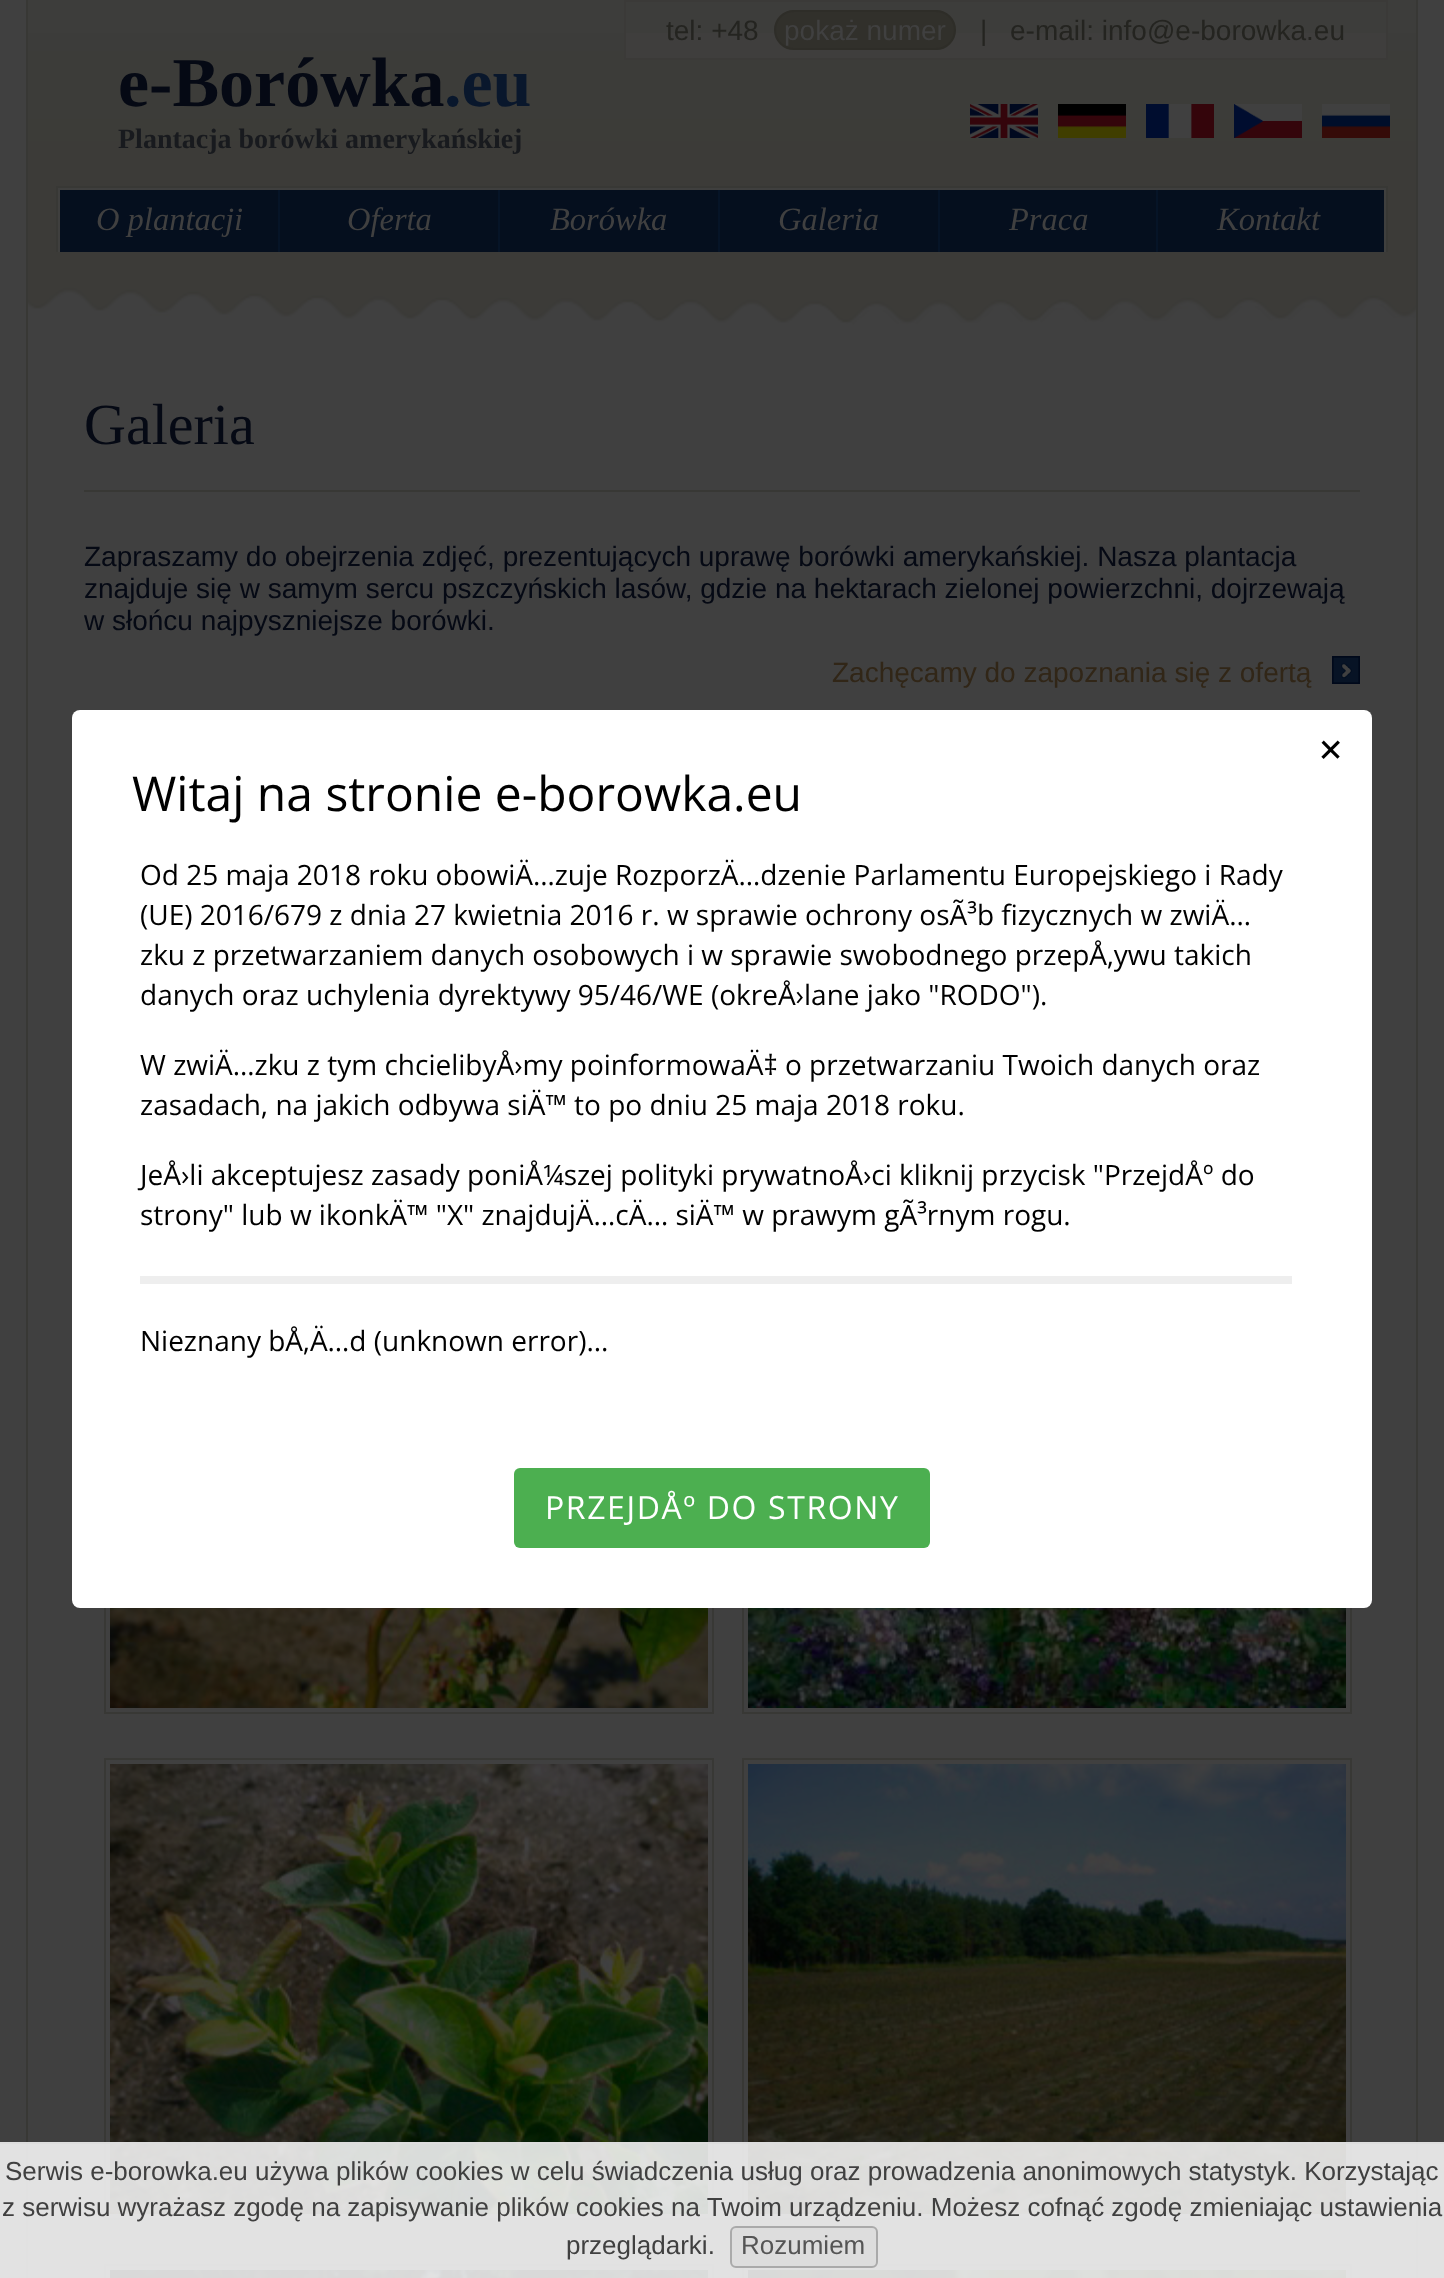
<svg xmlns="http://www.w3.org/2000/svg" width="1444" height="2278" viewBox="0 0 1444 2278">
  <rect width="100%" height="100%" fill="rgb(64,64,64)"/>
  <rect x="28" y="0" width="1388" height="33" fill="rgb(61,61,59)"/>
  <image x="28" y="33" width="1388" height="299" href="pic1.png"/>
  <rect x="626" y="33" width="760" height="25" fill="rgb(63,62,61)"/>
  <rect x="625" y="1" width="762" height="58" fill="none" stroke="rgb(59,58,56)" stroke-width="2"/>
  <text x="666" y="40" font-family="Liberation Sans" font-size="28" fill="rgb(36,36,32)">tel: +48</text>
  <rect x="775" y="11" width="180" height="38" rx="19" fill="rgb(49,48,43)" stroke="rgb(46,45,40)" stroke-width="2"/>
  <text x="784" y="40" font-family="Liberation Sans" font-size="28" fill="rgb(64,64,64)">pokaż numer</text>
  <g font-family="Liberation Sans" font-size="28" fill="rgb(36,36,32)">
    <text x="980" y="40">|</text>
    <text x="1010" y="40">e-mail: info@e-borowka.eu</text>
  </g>
  <image x="970" y="104" width="68" height="34" href="pic2.png"/>
  <image x="1058" y="104" width="68" height="34" href="pic3.png"/>
  <image x="1146" y="104" width="68" height="34" href="pic4.png"/>
  <image x="1234" y="104" width="68" height="34" href="pic5.png"/>
  <image x="1322" y="104" width="68" height="34" href="pic6.png"/>
  <text x="118" y="106" font-family="Tinos" font-size="70" font-weight="bold" fill="rgb(5,9,20)">e-Borówka</text>
  <text x="444" y="106" font-family="Tinos" font-size="70" font-weight="bold" fill="rgb(9,23,44)">.eu</text>
  <text x="118" y="148" font-family="Tinos" font-size="28" font-weight="bold" fill="rgb(24,26,30)">Plantacja borówki amerykańskiej</text>
  <rect x="56" y="186" width="1332" height="2" fill="rgb(56,56,53)"/>
  <rect x="1386" y="186" width="2" height="66" fill="rgb(56,56,53)"/>
  <rect x="56" y="186" width="2" height="66" fill="rgb(56,56,53)"/>
  <rect x="60" y="190" width="1324" height="62" fill="rgb(5,15,30)"/>
  <rect x="58" y="188" width="1328" height="2" fill="rgb(63,63,62)"/>
  <rect x="1384" y="188" width="2" height="64" fill="rgb(63,63,62)"/>
  <rect x="58" y="188" width="2" height="64" fill="rgb(63,63,62)"/>
  <text x="96" y="230" font-family="Tinos" font-size="32.5" font-style="italic" fill="rgb(64,64,64)">O plantacji</text>
  <rect x="278" y="190" width="2" height="62" fill="rgb(6,20,39)"/>
  <text x="347" y="230" font-family="Tinos" font-size="32.5" font-style="italic" fill="rgb(64,64,64)">Oferta</text>
  <rect x="498" y="190" width="2" height="62" fill="rgb(6,20,39)"/>
  <text x="550" y="230" font-family="Tinos" font-size="32.5" font-style="italic" fill="rgb(64,64,64)">Borówka</text>
  <rect x="718" y="190" width="2" height="62" fill="rgb(6,20,39)"/>
  <text x="778" y="230" font-family="Tinos" font-size="32.5" font-style="italic" fill="rgb(64,64,64)">Galeria</text>
  <rect x="938" y="190" width="2" height="62" fill="rgb(6,20,39)"/>
  <text x="1009" y="230" font-family="Tinos" font-size="32.5" font-style="italic" fill="rgb(64,64,64)">Praca</text>
  <rect x="1156" y="190" width="2" height="62" fill="rgb(6,20,39)"/>
  <text x="1217" y="230" font-family="Tinos" font-size="32.5" font-style="italic" fill="rgb(64,64,64)">Kontakt</text>
  <rect x="1416" y="0" width="2" height="2278" fill="rgb(56,56,53)"/>
  <rect x="26" y="0" width="2" height="2278" fill="rgb(56,56,53)"/>
  <rect x="84" y="490" width="1276" height="2" fill="rgb(56,56,53)"/>
  <text x="84" y="444" font-family="Tinos" font-size="58" fill="rgb(5,9,20)">Galeria</text>
  <g font-family="Liberation Sans" font-size="28" fill="rgb(5,9,20)">
    <text>
      <tspan x="84" y="566">Zapraszamy do obejrzenia zdjęć, prezentujących uprawę borówki amerykańskiej. Nasza plantacja</tspan>
      <tspan x="84" y="598">znajduje się w samym sercu pszczyńskich lasów, gdzie na hektarach zielonej powierzchni, dojrzewają</tspan>
      <tspan x="84" y="630">w słońcu najpyszniejsze borówki.</tspan>
    </text>
  </g>
  <text x="832" y="682" font-family="Liberation Sans" font-size="28" fill="rgb(49,38,23)">Zachęcamy do zapoznania się z ofertą</text>
  <image x="1332" y="656" width="28" height="28" href="pic7.png"/>
  <rect x="105" y="1253" width="608" height="460" fill="none" stroke="rgb(56,56,53)" stroke-width="2"/>
  <image x="110" y="1608" width="598" height="100" href="pic8.png"/>
  <rect x="743" y="1253" width="608" height="460" fill="none" stroke="rgb(56,56,53)" stroke-width="2"/>
  <image x="748" y="1608" width="598" height="100" href="pic9.png"/>
  <rect x="105" y="1759" width="608" height="460" fill="none" stroke="rgb(56,56,53)" stroke-width="2"/>
  <image x="110" y="1764" width="598" height="450" href="pic10.png"/>
  <rect x="743" y="1759" width="608" height="460" fill="none" stroke="rgb(56,56,53)" stroke-width="2"/>
  <image x="748" y="1764" width="598" height="450" href="pic11.png"/>
  <rect x="105" y="2265" width="608" height="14" fill="none" stroke="rgb(56,56,53)" stroke-width="2"/>
  <image x="110" y="2270" width="598" height="8" href="pic12.png"/>
  <rect x="743" y="2265" width="608" height="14" fill="none" stroke="rgb(56,56,53)" stroke-width="2"/>
  <image x="748" y="2270" width="598" height="8" href="pic13.png"/>
  <rect x="72" y="710" width="1300" height="898" rx="8" fill="rgb(255,255,255)"/>
  <g font-family="Open Sans" font-size="48" fill="rgb(0,0,0)">
    <text x="1309" y="752" transform="rotate(45 1309 752)">+</text>
    <text x="132" y="811">Witaj na stronie e-borowka.eu</text>
  </g>
  <g font-family="Open Sans" font-size="28" fill="rgb(0,0,0)">
    <text>
      <tspan x="140" y="885">Od 25 maja 2018 roku obowiÄ…zuje RozporzÄ…dzenie Parlamentu Europejskiego i Rady</tspan>
      <tspan x="140" y="925">(UE) 2016/679 z dnia 27 kwietnia 2016 r. w sprawie ochrony osÃ³b fizycznych w zwiÄ…</tspan>
      <tspan x="140" y="965">zku z przetwarzaniem danych osobowych i w sprawie swobodnego przepÅ‚ywu takich</tspan>
      <tspan x="140" y="1005">danych oraz uchylenia dyrektywy 95/46/WE (okreÅ›lane jako "RODO").</tspan>
    </text>
    <text>
      <tspan x="140" y="1075">W zwiÄ…zku z tym chcielibyÅ›my poinformowaÄ‡ o przetwarzaniu Twoich danych oraz</tspan>
      <tspan x="140" y="1115">zasadach, na jakich odbywa siÄ™ to po dniu 25 maja 2018 roku.</tspan>
    </text>
    <text>
      <tspan x="140" y="1185">JeÅ›li akceptujesz zasady poniÅ¼szej polityki prywatnoÅ›ci kliknij przycisk "PrzejdÅº do</tspan>
      <tspan x="140" y="1225">strony" lub w ikonkÄ™ "X" znajdujÄ…cÄ… siÄ™ w prawym gÃ³rnym rogu.</tspan>
    </text>
  </g>
  <rect x="140" y="1276" width="1152" height="8" fill="rgb(238,238,238)"/>
  <text x="140" y="1351" font-family="Open Sans" font-size="28" fill="rgb(0,0,0)">Nieznany bÅ‚Ä…d (unknown error)...</text>
  <rect x="514" y="1468" width="416" height="80" rx="6" fill="rgb(76,175,80)"/>
  <text x="545" y="1519" font-family="Open Sans" font-size="32" letter-spacing="1.6" fill="rgb(255,255,255)">PRZEJDÅº DO STRONY</text>
  <rect x="0" y="2144" width="1444" height="134" fill="rgba(255,255,255,0.85)"/>
  <rect x="0" y="2142" width="1444" height="2" fill="rgb(221,221,221)"/>
  <g font-family="Liberation Sans" font-size="26" fill="rgb(64,64,64)">
    <text x="5" y="2180">Serwis e-borowka.eu używa plików cookies w celu świadczenia usług oraz prowadzenia anonimowych statystyk. Korzystając</text>
    <text x="2" y="2216">z serwisu wyrażasz zgodę na zapisywanie plików cookies na Twoim urządzeniu. Możesz cofnąć zgodę zmieniając ustawienia</text>
    <text x="566" y="2254">przeglądarki.</text>
  </g>
  <rect x="731" y="2227" width="146" height="40" rx="5" fill="rgb(221,221,221)" stroke="rgb(170,170,170)" stroke-width="2"/>
  <text x="741" y="2254" font-family="Liberation Sans" font-size="26" fill="rgb(85,85,85)">Rozumiem</text>
</svg>
